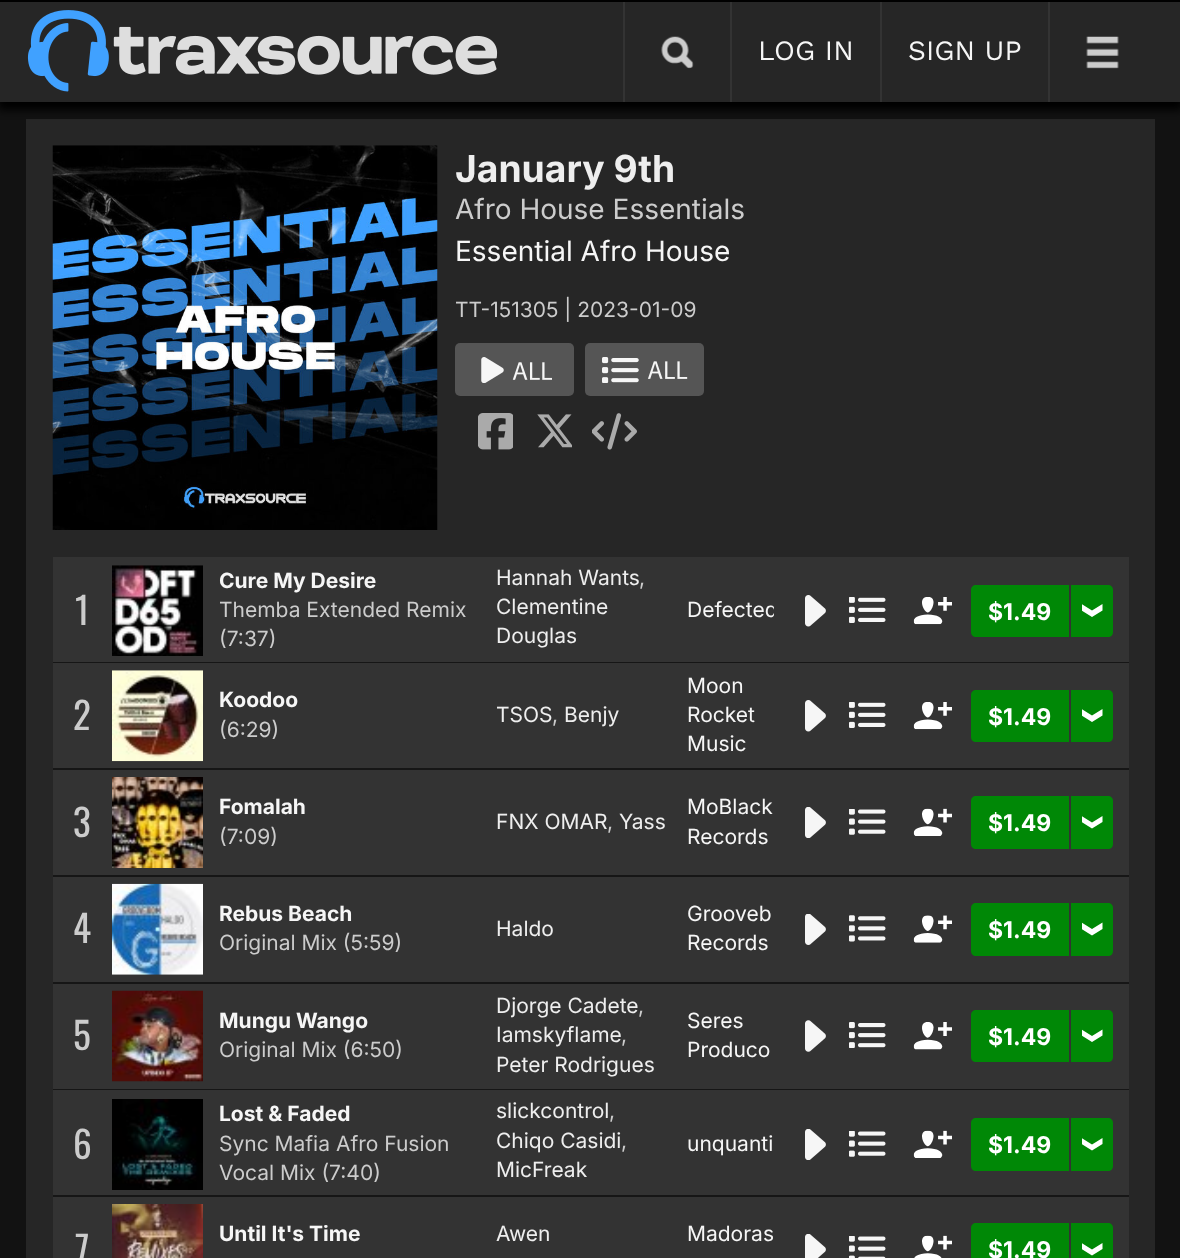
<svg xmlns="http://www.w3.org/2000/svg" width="1180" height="1258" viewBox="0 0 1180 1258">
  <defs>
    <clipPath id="clip1"><rect x="688" y="597" width="86" height="28"/></clipPath>
    <clipPath id="clip2"><rect x="1082" y="604" width="21" height="14"/></clipPath>
    <clipPath id="clip3"><rect x="1082" y="709" width="21" height="14"/></clipPath>
    <clipPath id="clip4"><rect x="1082" y="816" width="21" height="14"/></clipPath>
    <clipPath id="clip5"><rect x="1082" y="922" width="21" height="14"/></clipPath>
    <clipPath id="clip6"><rect x="1082" y="1029" width="21" height="14"/></clipPath>
    <clipPath id="clip7"><rect x="1082" y="1138" width="21" height="14"/></clipPath>
    <clipPath id="clip8"><rect x="1082" y="1243" width="21" height="14"/></clipPath>
  </defs>
  <rect width="100%" height="100%" fill="rgb(18,18,18)"/>
  <rect x="26" y="119" width="1129" height="1139" fill="rgb(38,38,38)"/>
  <rect x="-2" y="5" width="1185" height="105" fill="rgb(0,0,0)" filter="blur(4.5px)"/>
  <rect x="0" y="2" width="1180" height="100" fill="rgb(38,38,38)"/>
  <rect x="623" y="0" width="2" height="102" fill="rgb(51,51,51)"/>
  <rect x="730" y="0" width="2" height="102" fill="rgb(51,51,51)"/>
  <rect x="880" y="0" width="2" height="102" fill="rgb(51,51,51)"/>
  <rect x="1048" y="0" width="2" height="102" fill="rgb(51,51,51)"/>
  <rect x="0" y="0" width="1180" height="2" fill="rgb(0,0,0)"/>
  <image x="27" y="10" width="471" height="82" href="pic1.png"/>
  <image x="661" y="36" width="33" height="33" href="pic2.png"/>
  <g font-family="Work Sans" font-size="28" fill="rgb(246,246,246)">
    <text x="758" y="60">LOG IN</text>
    <text x="908" y="60">SIGN UP</text>
  </g>
  <image x="1086" y="36" width="33" height="33" href="pic3.png"/>
  <image x="52" y="145" width="386" height="385" href="pic4.png"/>
  <text x="455" y="182" font-family="Inter" font-size="37.25" font-weight="bold" fill="rgb(238,238,238)">January 9th</text>
  <text x="455" y="219" font-family="Inter" font-size="28" fill="rgb(204,204,204)">Afro House Essentials</text>
  <text x="455" y="261" font-family="Inter" font-size="28" fill="rgb(246,246,246)">Essential Afro House</text>
  <text x="455" y="317" font-family="Inter" font-size="21" fill="rgb(204,204,204)">TT-151305 | 2023-01-09</text>
  <rect x="455" y="343" width="119" height="53" rx="5" fill="rgb(85,85,85)"/>
  <image x="481" y="357" width="71" height="26" href="pic5.png"/>
  <rect x="585" y="343" width="119" height="53" rx="5" fill="rgb(85,85,85)"/>
  <image x="602" y="357" width="86" height="26" href="pic6.png"/>
  <image x="478" y="413" width="35" height="37" href="pic7.png"/>
  <image x="537" y="414" width="35" height="34" href="pic8.png"/>
  <image x="592" y="413" width="45" height="37" href="pic9.png"/>
  <rect x="53" y="557" width="1076" height="105" fill="rgb(51,51,51)"/>
  <rect x="53" y="662" width="1076" height="1" fill="rgb(22,22,22)"/>
  <text x="75" y="625" font-family="Oswald" font-size="37.25" letter-spacing="-2" fill="rgb(204,204,204)">1</text>
  <image x="112" y="565" width="91" height="91" href="pic10.png"/>
  <text x="219" y="588" font-family="Inter" font-size="21" font-weight="bold" fill="rgb(246,246,246)">Cure My Desire</text>
  <g font-family="Inter" font-size="21" fill="rgb(204,204,204)">
    <text>
      <tspan x="219" y="617">Themba Extended Remix</tspan>
      <tspan x="219" y="646">(7:37)</tspan>
    </text>
  </g>
  <text x="496" y="585" font-family="Inter" font-size="21" fill="rgb(238,238,238)">Hannah Wants</text>
  <text x="639" y="585" font-family="Inter" font-size="21" fill="rgb(204,204,204)">,</text>
  <g font-family="Inter" font-size="21" fill="rgb(238,238,238)">
    <text>
      <tspan x="496" y="614">Clementine</tspan>
      <tspan x="496" y="643">Douglas</tspan>
    </text>
  </g>
  <g clip-path="url(#clip1)">
    <text x="687" y="617" font-family="Inter" font-size="21" fill="rgb(246,246,246)">Defected</text>
  </g>
  <image x="805" y="595" width="21" height="32" href="pic11.png"/>
  <image x="849" y="597" width="37" height="26" href="pic12.png"/>
  <image x="913" y="597" width="39" height="28" href="pic13.png"/>
  <path d="M976 585H1069V637H976C973 637 971 635 971 632V590C971 587 973 585 976 585Z" fill="rgb(0,136,6)"/>
  <text x="988" y="620" font-family="Inter" font-size="23" font-weight="bold" fill="rgb(255,255,255)">$1.49</text>
  <path d="M1071 585H1108C1111 585 1113 587 1113 590V632C1113 635 1111 637 1108 637H1071Z" fill="rgb(0,136,6)"/>
  <g clip-path="url(#clip2)">
    <path d="M1081.5 604V610.5L1092 617L1102.5 610.5V604L1092 610.5Z" fill="rgb(255,255,255)"/>
  </g>
  <rect x="53" y="663" width="1076" height="105" fill="rgb(51,51,51)"/>
  <rect x="53" y="768" width="1076" height="2" fill="rgb(22,22,22)"/>
  <text x="73" y="730" font-family="Oswald" font-size="37.25" letter-spacing="-2" fill="rgb(204,204,204)">2</text>
  <image x="112" y="670" width="91" height="92" href="pic14.png"/>
  <text x="219" y="707" font-family="Inter" font-size="21" font-weight="bold" fill="rgb(246,246,246)">Koodoo</text>
  <text x="219" y="737" font-family="Inter" font-size="21" fill="rgb(204,204,204)">(6:29)</text>
  <text x="496" y="722" font-family="Inter" font-size="21" fill="rgb(238,238,238)">TSOS</text>
  <text x="552" y="722" font-family="Inter" font-size="21" fill="rgb(204,204,204)">,</text>
  <text x="564" y="722" font-family="Inter" font-size="21" fill="rgb(238,238,238)">Benjy</text>
  <g font-family="Inter" font-size="21" fill="rgb(246,246,246)">
    <text>
      <tspan x="687" y="693">Moon</tspan>
      <tspan x="687" y="722">Rocket</tspan>
      <tspan x="687" y="751">Music</tspan>
    </text>
  </g>
  <image x="805" y="700" width="21" height="32" href="pic11.png"/>
  <image x="849" y="702" width="37" height="26" href="pic12.png"/>
  <image x="913" y="702" width="39" height="28" href="pic13.png"/>
  <path d="M976 690H1069V742H976C973 742 971 740 971 737V695C971 692 973 690 976 690Z" fill="rgb(0,136,6)"/>
  <text x="988" y="725" font-family="Inter" font-size="23" font-weight="bold" fill="rgb(255,255,255)">$1.49</text>
  <path d="M1071 690H1108C1111 690 1113 692 1113 695V737C1113 740 1111 742 1108 742H1071Z" fill="rgb(0,136,6)"/>
  <g clip-path="url(#clip3)">
    <path d="M1081.5 709V715.5L1092 722L1102.5 715.5V709L1092 715.5Z" fill="rgb(255,255,255)"/>
  </g>
  <rect x="53" y="770" width="1076" height="105" fill="rgb(51,51,51)"/>
  <rect x="53" y="875" width="1076" height="2" fill="rgb(22,22,22)"/>
  <text x="73" y="837" font-family="Oswald" font-size="37.25" letter-spacing="-2" fill="rgb(204,204,204)">3</text>
  <image x="112" y="777" width="91" height="91" href="pic15.png"/>
  <text x="219" y="814" font-family="Inter" font-size="21" font-weight="bold" fill="rgb(246,246,246)">Fomalah</text>
  <text x="219" y="844" font-family="Inter" font-size="21" fill="rgb(204,204,204)">(7:09)</text>
  <text x="496" y="829" font-family="Inter" font-size="21" fill="rgb(238,238,238)">FNX OMAR</text>
  <text x="607" y="829" font-family="Inter" font-size="21" fill="rgb(204,204,204)">,</text>
  <text x="619" y="829" font-family="Inter" font-size="21" fill="rgb(238,238,238)">Yass</text>
  <g font-family="Inter" font-size="21" fill="rgb(246,246,246)">
    <text>
      <tspan x="687" y="814">MoBlack</tspan>
      <tspan x="687" y="844">Records</tspan>
    </text>
  </g>
  <image x="805" y="807" width="21" height="31" href="pic16.png"/>
  <image x="849" y="809" width="37" height="26" href="pic17.png"/>
  <image x="913" y="808" width="39" height="28" href="pic18.png"/>
  <path d="M976 796H1069V849H976C973 849 971 847 971 844V801C971 798 973 796 976 796Z" fill="rgb(0,136,6)"/>
  <text x="988" y="831" font-family="Inter" font-size="23" font-weight="bold" fill="rgb(255,255,255)">$1.49</text>
  <path d="M1071 796H1108C1111 796 1113 798 1113 801V844C1113 847 1111 849 1108 849H1071Z" fill="rgb(0,136,6)"/>
  <g clip-path="url(#clip4)">
    <path d="M1081.5 816V822L1092 828.5L1102.5 822V816L1092 822.5Z" fill="rgb(255,255,255)"/>
  </g>
  <rect x="53" y="877" width="1076" height="105" fill="rgb(51,51,51)"/>
  <rect x="53" y="982" width="1076" height="2" fill="rgb(22,22,22)"/>
  <text x="73" y="943" font-family="Oswald" font-size="37.25" letter-spacing="-2" fill="rgb(204,204,204)">4</text>
  <image x="112" y="883" width="91" height="92" href="pic19.png"/>
  <text x="219" y="921" font-family="Inter" font-size="21" font-weight="bold" fill="rgb(246,246,246)">Rebus Beach</text>
  <text x="219" y="950" font-family="Inter" font-size="21" fill="rgb(204,204,204)">Original Mix (5:59)</text>
  <text x="496" y="936" font-family="Inter" font-size="21" fill="rgb(238,238,238)">Haldo</text>
  <g font-family="Inter" font-size="21" fill="rgb(246,246,246)">
    <text>
      <tspan x="687" y="921">Grooveb</tspan>
      <tspan x="687" y="950">Records</tspan>
    </text>
  </g>
  <image x="805" y="914" width="21" height="31" href="pic20.png"/>
  <image x="849" y="915" width="37" height="27" href="pic21.png"/>
  <image x="913" y="915" width="39" height="28" href="pic22.png"/>
  <path d="M976 903H1069V956H976C973 956 971 954 971 951V908C971 905 973 903 976 903Z" fill="rgb(0,136,6)"/>
  <text x="988" y="938" font-family="Inter" font-size="23" font-weight="bold" fill="rgb(255,255,255)">$1.49</text>
  <path d="M1071 903H1108C1111 903 1113 905 1113 908V951C1113 954 1111 956 1108 956H1071Z" fill="rgb(0,136,6)"/>
  <g clip-path="url(#clip5)">
    <path d="M1081.5 922.5V929L1092 935.5L1102.5 929V922.5L1092 929Z" fill="rgb(255,255,255)"/>
  </g>
  <rect x="53" y="984" width="1076" height="105" fill="rgb(51,51,51)"/>
  <rect x="53" y="1089" width="1076" height="1" fill="rgb(22,22,22)"/>
  <text x="73" y="1050" font-family="Oswald" font-size="37.25" letter-spacing="-2" fill="rgb(204,204,204)">5</text>
  <image x="112" y="990" width="91" height="92" href="pic23.png"/>
  <text x="219" y="1028" font-family="Inter" font-size="21" font-weight="bold" fill="rgb(246,246,246)">Mungu Wango</text>
  <text x="219" y="1057" font-family="Inter" font-size="21" fill="rgb(204,204,204)">Original Mix (6:50)</text>
  <text x="496" y="1013" font-family="Inter" font-size="21" fill="rgb(238,238,238)">Djorge Cadete</text>
  <text x="638" y="1013" font-family="Inter" font-size="21" fill="rgb(204,204,204)">,</text>
  <text x="496" y="1042" font-family="Inter" font-size="21" fill="rgb(238,238,238)">Iamskyflame</text>
  <text x="621" y="1042" font-family="Inter" font-size="21" fill="rgb(204,204,204)">,</text>
  <text x="496" y="1072" font-family="Inter" font-size="21" fill="rgb(238,238,238)">Peter Rodrigues</text>
  <g font-family="Inter" font-size="21" fill="rgb(246,246,246)">
    <text>
      <tspan x="687" y="1028">Seres</tspan>
      <tspan x="687" y="1057">Produco</tspan>
    </text>
  </g>
  <image x="805" y="1020" width="21" height="32" href="pic24.png"/>
  <image x="849" y="1022" width="37" height="26" href="pic25.png"/>
  <image x="913" y="1022" width="39" height="28" href="pic26.png"/>
  <path d="M976 1010H1069V1062H976C973 1062 971 1060 971 1057V1015C971 1012 973 1010 976 1010Z" fill="rgb(0,136,6)"/>
  <text x="988" y="1045" font-family="Inter" font-size="23" font-weight="bold" fill="rgb(255,255,255)">$1.49</text>
  <path d="M1071 1010H1108C1111 1010 1113 1012 1113 1015V1057C1113 1060 1111 1062 1108 1062H1071Z" fill="rgb(0,136,6)"/>
  <g clip-path="url(#clip6)">
    <path d="M1081.5 1029.5V1035.5L1092 1042L1102.5 1035.5V1029.5L1092 1036Z" fill="rgb(255,255,255)"/>
  </g>
  <rect x="53" y="1090" width="1076" height="105" fill="rgb(51,51,51)"/>
  <rect x="53" y="1195" width="1076" height="2" fill="rgb(22,22,22)"/>
  <text x="73" y="1159" font-family="Oswald" font-size="37.25" letter-spacing="-2" fill="rgb(204,204,204)">6</text>
  <image x="112" y="1099" width="91" height="91" href="pic27.png"/>
  <text x="219" y="1121" font-family="Inter" font-size="21" font-weight="bold" fill="rgb(246,246,246)">Lost &amp; Faded</text>
  <g font-family="Inter" font-size="21" fill="rgb(204,204,204)">
    <text>
      <tspan x="219" y="1151">Sync Mafia Afro Fusion</tspan>
      <tspan x="219" y="1180">Vocal Mix (7:40)</tspan>
    </text>
  </g>
  <text x="496" y="1118" font-family="Inter" font-size="21" fill="rgb(238,238,238)">slickcontrol</text>
  <text x="609" y="1118" font-family="Inter" font-size="21" fill="rgb(204,204,204)">,</text>
  <text x="496" y="1148" font-family="Inter" font-size="21" fill="rgb(238,238,238)">Chiqo Casidi</text>
  <text x="621" y="1148" font-family="Inter" font-size="21" fill="rgb(204,204,204)">,</text>
  <text x="496" y="1177" font-family="Inter" font-size="21" fill="rgb(238,238,238)">MicFreak</text>
  <text x="687" y="1151" font-family="Inter" font-size="21" fill="rgb(246,246,246)">unquanti</text>
  <image x="805" y="1129" width="21" height="31" href="pic16.png"/>
  <image x="849" y="1131" width="37" height="26" href="pic17.png"/>
  <image x="913" y="1130" width="39" height="28" href="pic18.png"/>
  <path d="M976 1118H1069V1171H976C973 1171 971 1169 971 1166V1123C971 1120 973 1118 976 1118Z" fill="rgb(0,136,6)"/>
  <text x="988" y="1153" font-family="Inter" font-size="23" font-weight="bold" fill="rgb(255,255,255)">$1.49</text>
  <path d="M1071 1118H1108C1111 1118 1113 1120 1113 1123V1166C1113 1169 1111 1171 1108 1171H1071Z" fill="rgb(0,136,6)"/>
  <g clip-path="url(#clip7)">
    <path d="M1081.5 1138V1144L1092 1150.5L1102.5 1144V1138L1092 1144.5Z" fill="rgb(255,255,255)"/>
  </g>
  <rect x="53" y="1197" width="1076" height="61" fill="rgb(51,51,51)"/>
  <text x="75" y="1264" font-family="Oswald" font-size="37.25" letter-spacing="-2" fill="rgb(204,204,204)">7</text>
  <image x="112" y="1204" width="91" height="54" href="pic28.png"/>
  <text x="219" y="1241" font-family="Inter" font-size="21" font-weight="bold" fill="rgb(246,246,246)">Until It's Time</text>
  <text x="496" y="1241" font-family="Inter" font-size="21" fill="rgb(238,238,238)">Awen</text>
  <text x="687" y="1241" font-family="Inter" font-size="21" fill="rgb(246,246,246)">Madoras</text>
  <image x="805" y="1234" width="21" height="24" href="pic29.png"/>
  <image x="849" y="1236" width="37" height="22" href="pic30.png"/>
  <image x="914" y="1235" width="38" height="23" href="pic31.png"/>
  <path d="M976 1223H1069V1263H976C973 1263 971 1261 971 1258V1228C971 1225 973 1223 976 1223Z" fill="rgb(0,136,6)"/>
  <text x="988" y="1258" font-family="Inter" font-size="23" font-weight="bold" fill="rgb(255,255,255)">$1.49</text>
  <path d="M1071 1223H1108C1111 1223 1113 1225 1113 1228V1258C1113 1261 1111 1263 1108 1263H1071Z" fill="rgb(0,136,6)"/>
  <g clip-path="url(#clip8)">
    <path d="M1081.5 1243V1249L1092 1255.5L1102.5 1249V1243L1092 1249.5Z" fill="rgb(255,255,255)"/>
  </g>
</svg>
